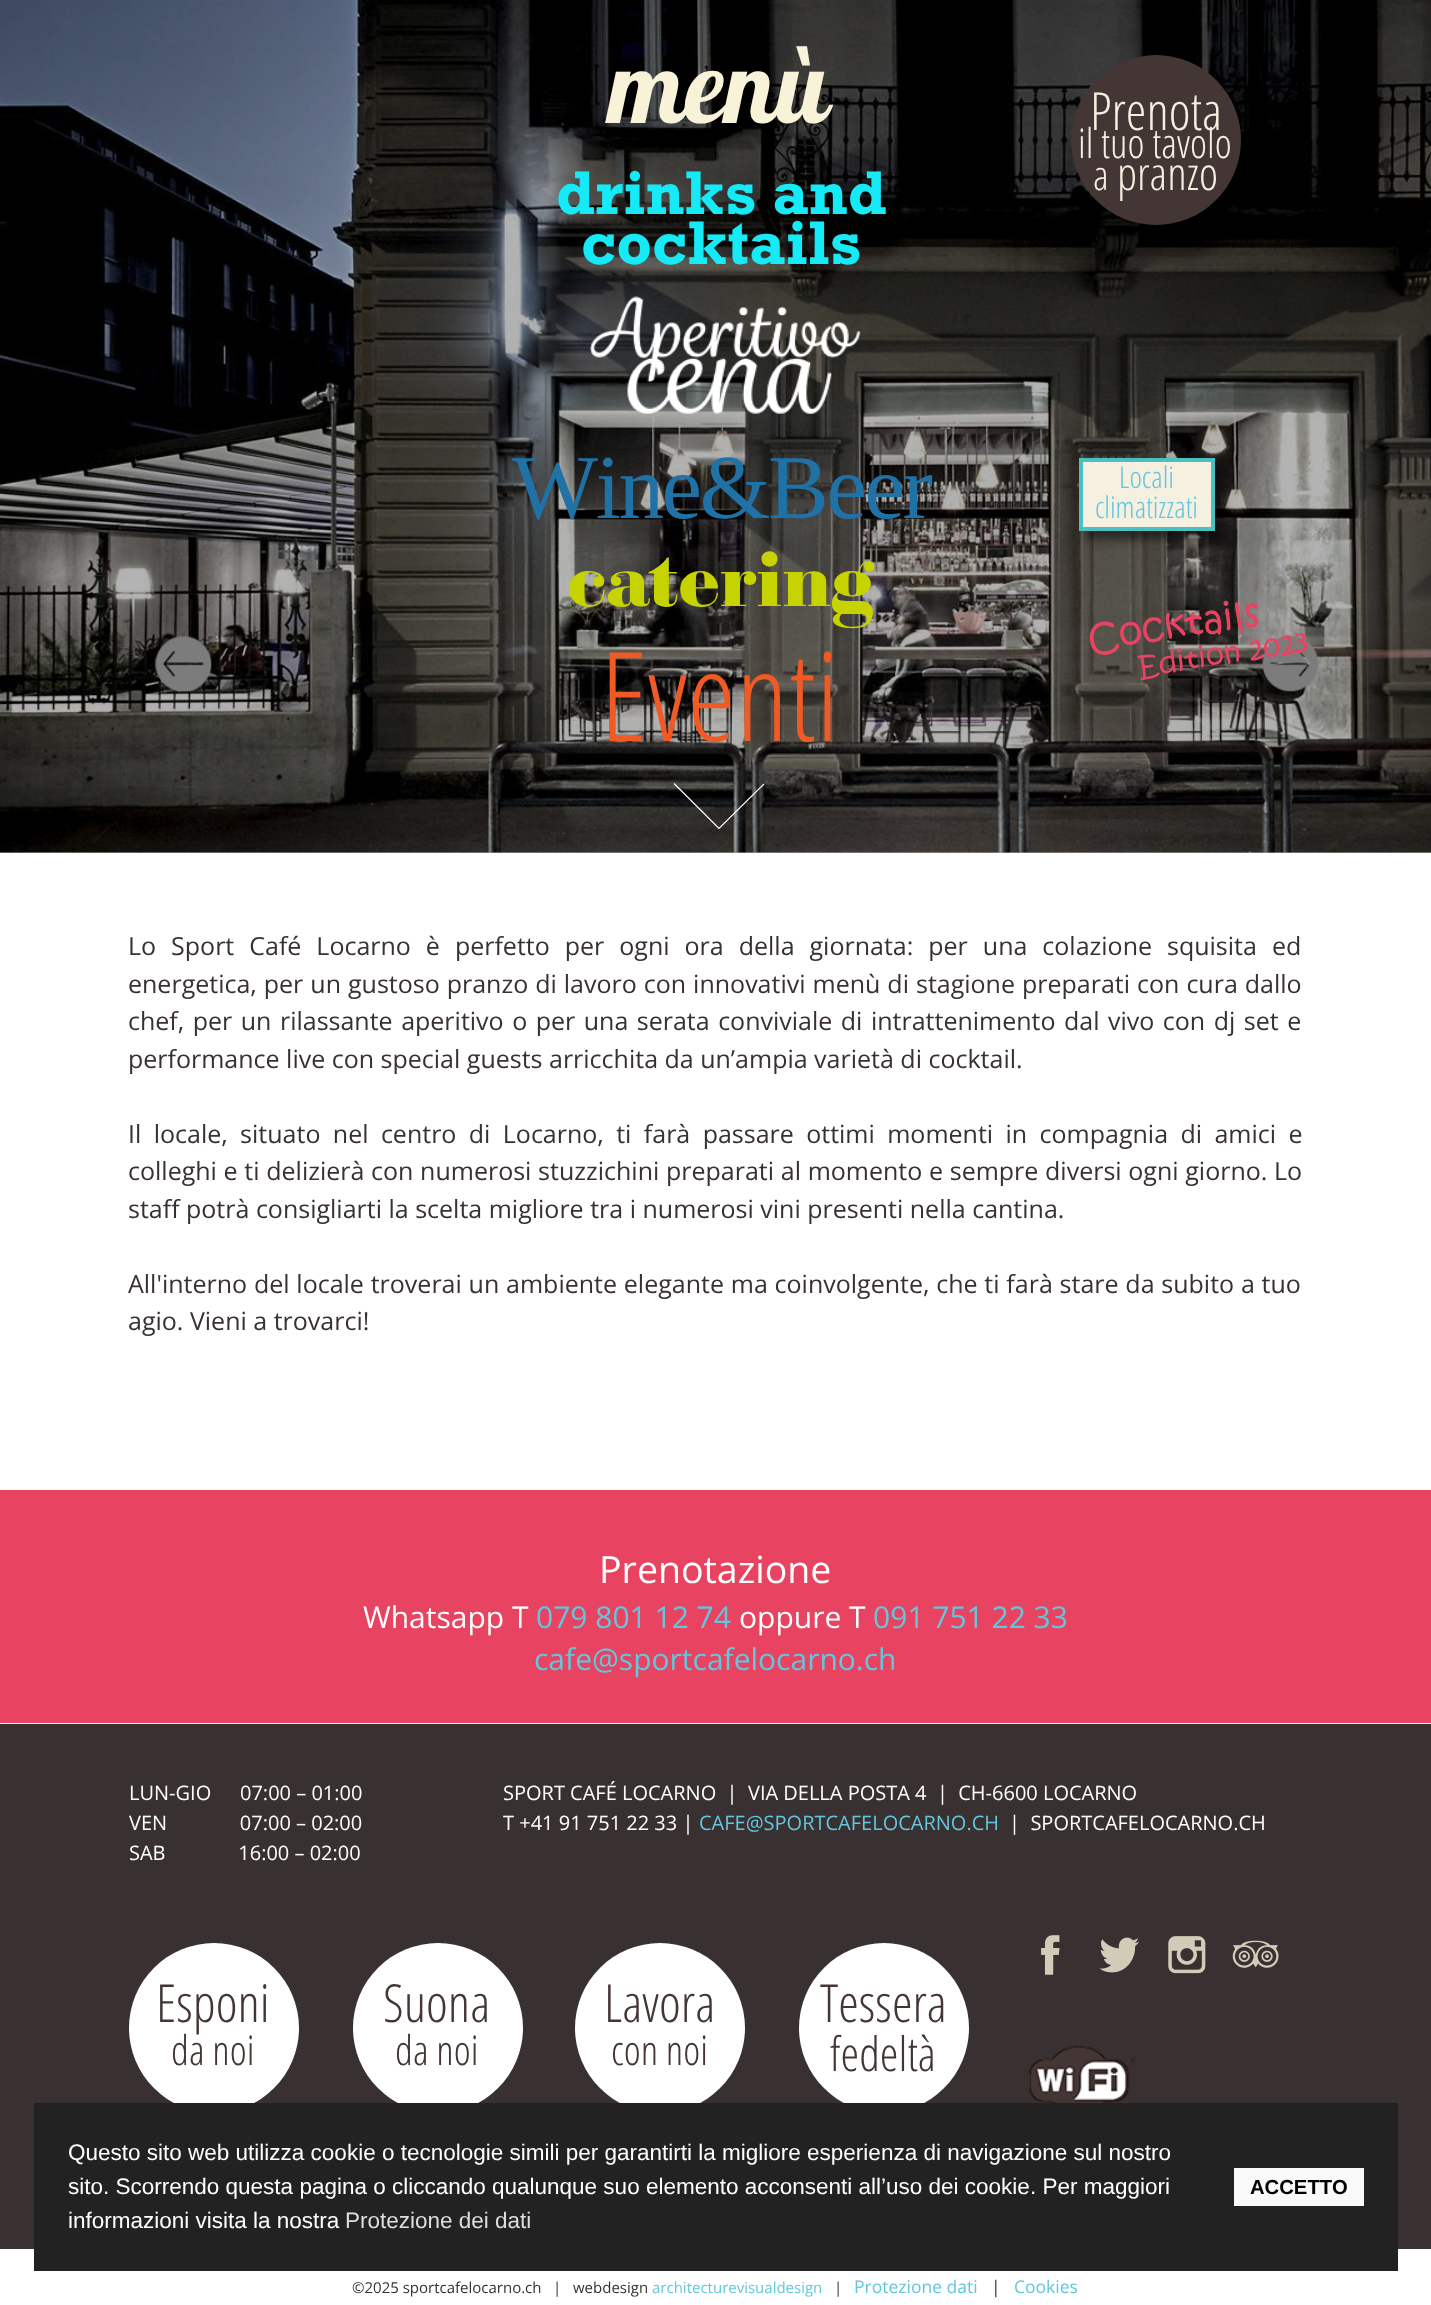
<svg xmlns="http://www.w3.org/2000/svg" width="1431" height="2305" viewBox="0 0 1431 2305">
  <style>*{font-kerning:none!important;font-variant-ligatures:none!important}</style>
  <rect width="100%" height="100%" fill="rgb(255,255,255)"/>
  <rect x="0" y="852" width="1431" height="1" fill="rgb(179,179,179)"/>
  <image x="0" y="0" width="1431" height="853" href="pic1.png"/>
  <image x="154" y="636" width="58" height="56" href="pic2.png"/>
  <image x="1262" y="636" width="57" height="56" href="pic3.png"/>
  <text x="609" y="123" font-family="Lobster" font-size="102.5" fill="rgb(248,242,217)">menù</text>
  <circle cx="1156" cy="140" r="85" fill="rgb(67,54,52)"/>
  <text x="1090" y="130" font-family="Open Sans" font-size="52.5" font-weight="300" fill="rgb(245,240,224)">Prenota</text>
  <g font-family="Open Sans" font-size="41" font-weight="300" fill="rgb(245,240,224)">
    <text x="1078" y="158">il tuo tavolo</text>
    <text x="1093" y="190">a</text>
  </g>
  <text x="1117" y="190" font-family="Open Sans" font-size="46" font-weight="300" fill="rgb(245,240,224)">pranzo</text>
  <g font-family="Rockwell" font-size="62.5" font-weight="bold" fill="rgb(22,234,246)">
    <text x="556" y="214">drinks and</text>
    <text x="581" y="264">cocktails</text>
  </g>
  <image x="589" y="296" width="272" height="118" href="pic4.png"/>
  <text x="512" y="518" font-family="Liberation Serif" font-size="91.25" letter-spacing="-2.5" fill="rgb(32,113,166)">Wine&amp;Beer</text>
  <rect x="1086" y="465" width="137" height="74" fill="rgba(0,0,0,0.5)" filter="blur(5px)"/>
  <rect x="1081" y="460" width="132" height="69" fill="rgb(245,240,224)" stroke="rgb(76,192,192)" stroke-width="4"/>
  <g font-family="Open Sans" font-size="30" font-weight="300" fill="rgb(98,198,221)">
    <text x="1119" y="488">Locali</text>
    <text x="1095" y="518">climatizzati</text>
  </g>
  <text x="567" y="606" font-family="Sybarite" font-size="79" font-weight="900" fill="rgb(199,211,0)">catering</text>
  <text x="1090" y="653" transform="rotate(-9 1090 653)" font-family="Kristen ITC" font-size="37.5" fill="rgb(233,67,98)">Cocktails</text>
  <text x="1140" y="678" transform="rotate(-9 1140 678)" font-family="Kristen ITC" font-size="28.75" fill="rgb(233,67,98)">Edition 2023</text>
  <text x="600" y="741" font-family="Open Sans" font-size="124" font-weight="300" fill="rgb(241,90,36)">Eventi</text>
  <path d="M764 784L719 828.5L674 783.5" fill="none" stroke="rgb(255,255,255)" stroke-width="1.2"/>
  <g font-family="Open Sans" font-size="25" fill="rgb(57,49,49)">
    <text>
      <tspan x="128" y="955" word-spacing="8.5">Lo Sport Café Locarno è perfetto per ogni ora della giornata: per una colazione squisita ed</tspan>
      <tspan x="128" y="993" word-spacing="0.5">energetica, per un gustoso pranzo di lavoro con innovativi menù di stagione preparati con cura dallo</tspan>
      <tspan x="128" y="1030" word-spacing="2">chef, per un rilassante aperitivo o per una serata conviviale di intrattenimento dal vivo con dj set e</tspan>
      <tspan x="128" y="1068">performance live con special guests arricchita da un’ampia varietà di cocktail.</tspan>
    </text>
    <text>
      <tspan x="128" y="1143" word-spacing="5.9">Il locale, situato nel centro di Locarno, ti farà passare ottimi momenti in compagnia di amici e</tspan>
      <tspan x="128" y="1180" word-spacing="0.2">colleghi e ti delizierà con numerosi stuzzichini preparati al momento e sempre diversi ogni giorno. Lo</tspan>
      <tspan x="128" y="1218">staff potrà consigliarti la scelta migliore tra i numerosi vini presenti nella cantina.</tspan>
    </text>
    <text>
      <tspan x="128" y="1293" word-spacing="0.3">All'interno del locale troverai un ambiente elegante ma coinvolgente, che ti farà stare da subito a tuo</tspan>
      <tspan x="128" y="1330">agio. Vieni a trovarci!</tspan>
    </text>
  </g>
  <rect x="0" y="1490" width="1431" height="233" fill="rgb(233,67,98)"/>
  <text x="599" y="1583" font-family="Open Sans" font-size="37.5" fill="rgb(255,255,255)">Prenotazione</text>
  <text x="363" y="1628" font-family="Open Sans" font-size="30" fill="rgb(255,255,255)">Whatsapp T</text>
  <text x="536" y="1628" font-family="Open Sans" font-size="30" fill="rgb(98,198,221)">079 801 12 74</text>
  <text x="739" y="1628" font-family="Open Sans" font-size="30" fill="rgb(255,255,255)">oppure T</text>
  <g font-family="Open Sans" font-size="30" fill="rgb(98,198,221)">
    <text x="873" y="1628">091 751 22 33</text>
    <text x="534" y="1670">cafe@sportcafelocarno.ch</text>
  </g>
  <rect x="0" y="1724" width="1431" height="525" fill="rgb(57,49,49)"/>
  <g font-family="Open Sans" font-size="20" fill="rgb(255,255,255)">
    <text x="129" y="1800">LUN-GIO</text>
    <text x="240" y="1800">07:00 – 01:00</text>
    <text xml:space="preserve"><tspan x="129" y="1830">VEN              07:00 – 02:00</tspan><tspan x="129" y="1860">SAB              16:00 – 02:00</tspan></text>
    <text xml:space="preserve"><tspan x="503" y="1800">SPORT CAFÉ LOCARNO  |  VIA DELLA POSTA 4  |  CH-6600 LOCARNO</tspan><tspan x="503" y="1830">T +41 91 751 22 33 |</tspan></text>
  </g>
  <text x="699" y="1830" font-family="Open Sans" font-size="20" fill="rgb(98,198,221)">CAFE@SPORTCAFELOCARNO.CH</text>
  <text x="1009" y="1830" font-family="Open Sans" font-size="20" fill="rgb(255,255,255)" xml:space="preserve">|  SPORTCAFELOCARNO.CH</text>
  <circle cx="214" cy="2028" r="85" fill="rgb(255,255,255)"/>
  <text x="156" y="2022" font-family="Open Sans" font-size="52.5" font-weight="300" fill="rgb(67,54,52)">Esponi</text>
  <text x="171" y="2065" font-family="Open Sans" font-size="41" font-weight="300" fill="rgb(67,54,52)">da noi</text>
  <circle cx="438" cy="2028" r="85" fill="rgb(255,255,255)"/>
  <text x="383" y="2022" font-family="Open Sans" font-size="52.5" font-weight="300" fill="rgb(67,54,52)">Suona</text>
  <text x="395" y="2065" font-family="Open Sans" font-size="41" font-weight="300" fill="rgb(67,54,52)">da noi</text>
  <circle cx="660" cy="2028" r="85" fill="rgb(255,255,255)"/>
  <text x="604" y="2022" font-family="Open Sans" font-size="52.5" font-weight="300" fill="rgb(67,54,52)">Lavora</text>
  <text x="611" y="2065" font-family="Open Sans" font-size="41" font-weight="300" fill="rgb(67,54,52)">con noi</text>
  <circle cx="884" cy="2028" r="85" fill="rgb(255,255,255)"/>
  <text x="820" y="2022" font-family="Open Sans" font-size="52.5" font-weight="300" fill="rgb(67,54,52)">Tessera</text>
  <text x="830" y="2071" font-family="Open Sans" font-size="47.5" font-weight="300" fill="rgb(67,54,52)">fedeltà</text>
  <image x="1041" y="1935" width="19" height="40" href="pic5.png"/>
  <image x="1099" y="1937" width="40" height="36" href="pic6.png"/>
  <image x="1168" y="1936" width="38" height="38" href="pic7.png"/>
  <image x="1232" y="1940" width="47" height="28" href="pic8.png"/>
  <image x="1028" y="2045" width="108" height="58" href="pic9.png"/>
  <g font-family="Open Sans" font-size="15" fill="rgb(57,49,49)">
    <text x="352" y="2293">©2025 sportcafelocarno.ch</text>
    <text x="553" y="2293">|</text>
    <text x="573" y="2293">webdesign</text>
  </g>
  <text x="652" y="2293" font-family="Open Sans" font-size="15" fill="rgb(98,198,221)">architecturevisualdesign</text>
  <text x="834" y="2293" font-family="Open Sans" font-size="15" fill="rgb(57,49,49)">|</text>
  <text x="854" y="2293" font-family="Open Sans" font-size="17.5" fill="rgb(98,198,221)">Protezione dati</text>
  <text x="991" y="2293" font-family="Open Sans" font-size="17.5" fill="rgb(57,49,49)">|</text>
  <text x="1014" y="2293" font-family="Open Sans" font-size="17.5" fill="rgb(98,198,221)">Cookies</text>
  <rect x="34" y="2103" width="1364" height="168" fill="rgb(34,34,34)"/>
  <g font-family="Liberation Sans" font-size="22.5" fill="rgb(255,255,255)">
    <text>
      <tspan x="68" y="2160">Questo sito web utilizza cookie o tecnologie simili per garantirti la migliore esperienza di navigazione sul nostro</tspan>
      <tspan x="68" y="2194">sito. Scorrendo questa pagina o cliccando qualunque suo elemento acconsenti all’uso dei cookie. Per maggiori</tspan>
      <tspan x="68" y="2228">informazioni visita la nostra</tspan>
    </text>
  </g>
  <text x="345" y="2228" font-family="Liberation Sans" font-size="22.5" fill="rgb(222,222,222)">Protezione dei dati</text>
  <rect x="1234" y="2168" width="130" height="38" fill="rgb(249,249,249)"/>
  <text x="1250" y="2194" font-family="Liberation Sans" font-size="20.25" font-weight="bold" fill="rgb(0,0,0)">ACCETTO</text>
</svg>
